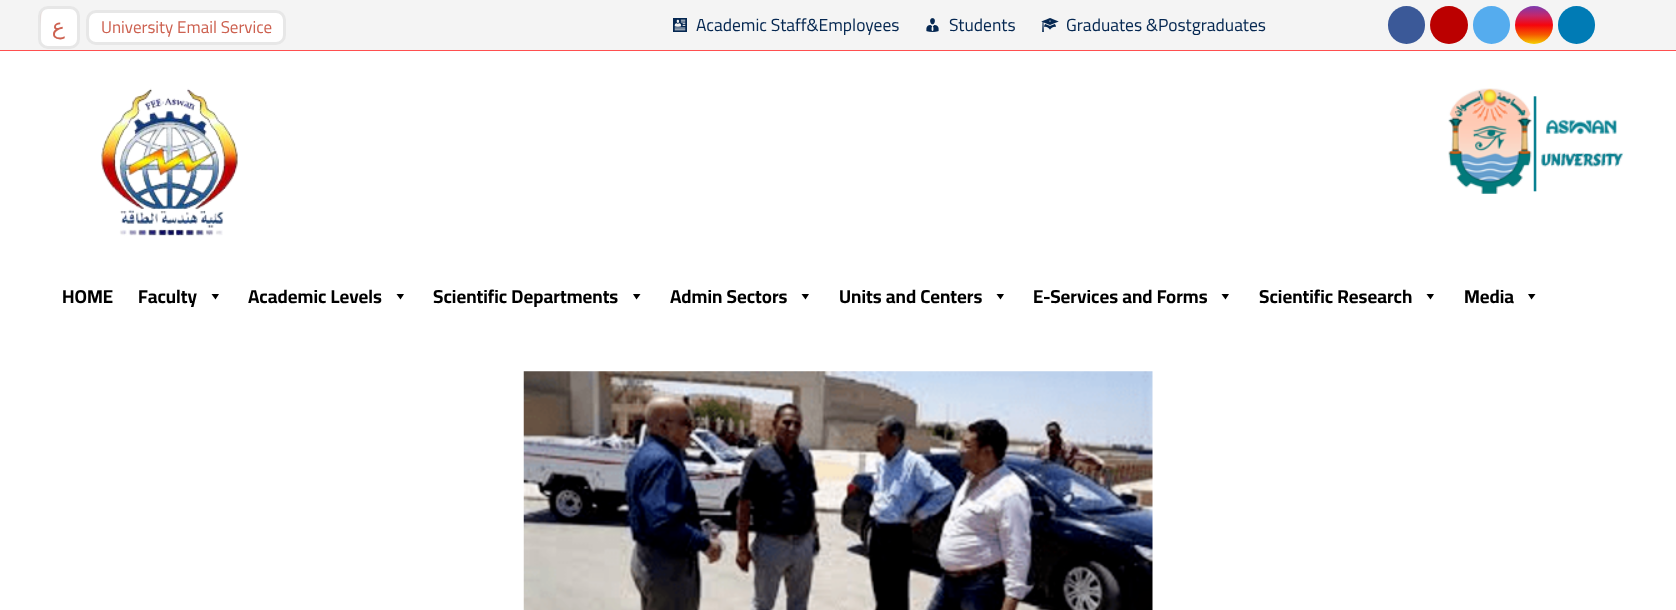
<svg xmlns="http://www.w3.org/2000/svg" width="1676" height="610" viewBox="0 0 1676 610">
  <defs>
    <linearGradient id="g1" gradientUnits="userSpaceOnUse" x1="40" y1="31" x2="2.9" y2="24"><stop offset="0" stop-color="rgb(205,98,81)" stop-opacity="0"/><stop offset="0.4" stop-color="rgb(205,98,81)" stop-opacity="0.5"/><stop offset="0.6" stop-color="rgb(205,98,81)" stop-opacity="0.5"/><stop offset="1" stop-color="rgb(205,98,81)" stop-opacity="0"/></linearGradient>
    <linearGradient id="g2" gradientUnits="userSpaceOnUse" x1="1534" y1="6.2" x2="1534" y2="44"><stop offset="0" stop-color="rgb(125,58,174)"/><stop offset="0.25" stop-color="rgb(196,39,107)"/><stop offset="0.5" stop-color="rgb(246,4,12)"/><stop offset="0.75" stop-color="rgb(245,89,0)"/><stop offset="1" stop-color="rgb(246,208,0)"/></linearGradient>
  </defs>
  <rect width="100%" height="100%" fill="rgb(255,255,255)"/>
  <rect x="0" y="0" width="1676" height="50" fill="rgb(244,244,244)"/>
  <rect x="0" y="50" width="1676" height="1" fill="rgb(255,79,79)"/>
  <rect x="39.5" y="7.5" width="39" height="40" rx="8.5" fill="rgb(255,255,255)" stroke="rgb(231,231,231)" stroke-width="3"/>
  <path d="M43 10.5L40 28V17C40 14.5 41 12 43 10.5Z" fill="url(#g1)"/>
  <text x="65" y="34" font-family="DejaVu Sans" font-size="22" direction="rtl" fill="rgb(205,98,81)">ع</text>
  <rect x="87.5" y="11.5" width="197" height="32" rx="8.5" fill="rgb(255,255,255)" stroke="rgb(231,231,231)" stroke-width="3"/>
  <text x="101" y="33" font-family="Cairo" font-size="17" fill="rgb(205,98,81)">University Email Service</text>
  <image x="673" y="18" width="14" height="14" href="pic1.png"/>
  <text x="696" y="31" font-family="Cairo" font-size="17.5" fill="rgb(5,39,81)">Academic Staff&amp;Employees</text>
  <image x="926" y="18" width="13" height="14" href="pic2.png"/>
  <text x="949" y="31" font-family="Cairo" font-size="17.5" fill="rgb(5,39,81)">Students</text>
  <image x="1041" y="18" width="18" height="14" href="pic3.png"/>
  <text x="1066" y="31" font-family="Cairo" font-size="17.5" fill="rgb(5,39,81)">Graduates &amp;Postgraduates</text>
  <rect x="1388" y="6" width="37" height="38" rx="18.5" fill="rgb(59,89,152)"/>
  <circle cx="1449" cy="25" r="19" fill="rgb(187,0,0)"/>
  <rect x="1473" y="6" width="37" height="38" rx="18.5" fill="rgb(85,172,238)"/>
  <circle cx="1534" cy="25" r="19" fill="url(#g2)"/>
  <rect x="1558" y="6" width="37" height="38" rx="18.5" fill="rgb(0,123,181)"/>
  <image x="101" y="88" width="137" height="148" href="pic4.png"/>
  <image x="1448" y="88" width="176" height="106" href="pic5.png"/>
  <g font-family="Cairo" font-size="18.75" font-weight="bold" fill="rgb(0,0,0)">
    <text x="62" y="303">HOME</text>
    <text x="138" y="303">Faculty</text>
  </g>
  <path d="M219 294L215.5 299.5L211.5 294Z" fill="rgb(0,0,0)"/>
  <text x="248" y="303" font-family="Cairo" font-size="18.75" font-weight="bold" fill="rgb(0,0,0)">Academic Levels</text>
  <path d="M404 294L400.5 299.5L396.5 294Z" fill="rgb(0,0,0)"/>
  <text x="433" y="303" font-family="Cairo" font-size="18.75" font-weight="bold" fill="rgb(0,0,0)">Scientific Departments</text>
  <path d="M640.5 294L636.5 299.5L633 294Z" fill="rgb(0,0,0)"/>
  <text x="670" y="303" font-family="Cairo" font-size="18.75" font-weight="bold" fill="rgb(0,0,0)">Admin Sectors</text>
  <path d="M809 294L805.5 299.5L801.5 294Z" fill="rgb(0,0,0)"/>
  <text x="839" y="303" font-family="Cairo" font-size="18.75" font-weight="bold" fill="rgb(0,0,0)">Units and Centers</text>
  <path d="M1004 294L1000.5 299.5L996.5 294Z" fill="rgb(0,0,0)"/>
  <text x="1033" y="303" font-family="Cairo" font-size="18.75" font-weight="bold" fill="rgb(0,0,0)">E-Services and Forms</text>
  <path d="M1229 294L1225.5 299.5L1221.5 294Z" fill="rgb(0,0,0)"/>
  <text x="1259" y="303" font-family="Cairo" font-size="18.75" font-weight="bold" fill="rgb(0,0,0)">Scientific Research</text>
  <path d="M1434 294L1430.5 299.5L1426.5 294Z" fill="rgb(0,0,0)"/>
  <text x="1464" y="303" font-family="Cairo" font-size="18.75" font-weight="bold" fill="rgb(0,0,0)">Media</text>
  <path d="M1535.5 294L1531.5 299.5L1528 294Z" fill="rgb(0,0,0)"/>
  <image x="523" y="371" width="630" height="239" href="pic6.png"/>
</svg>
